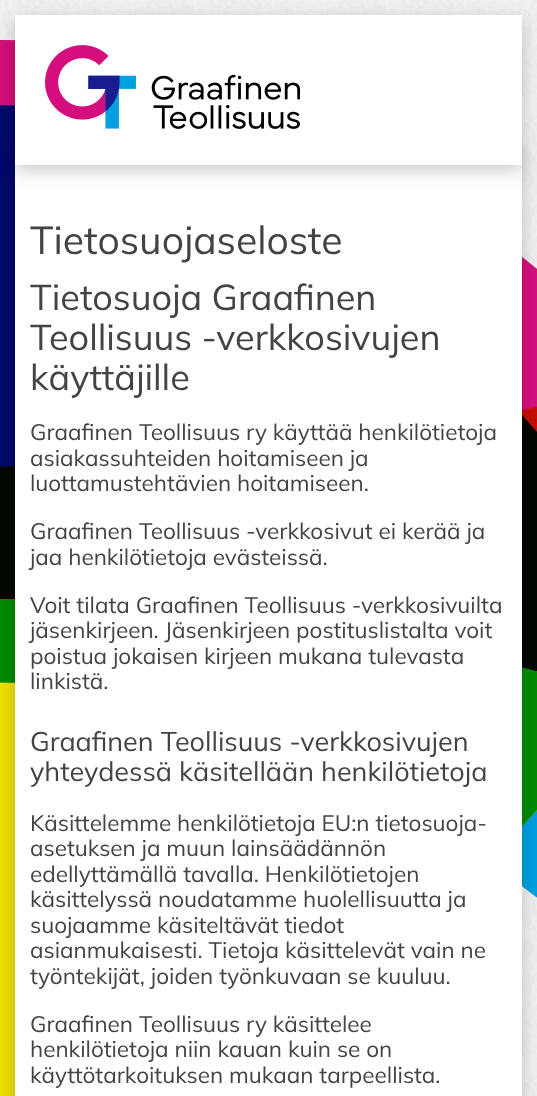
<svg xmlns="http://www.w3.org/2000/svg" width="537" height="1096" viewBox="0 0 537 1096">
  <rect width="100%" height="100%" fill="rgb(255,255,255)"/>
  <image x="0" y="0" width="537" height="1096" href="pic1.png"/>
  <image x="0" y="39" width="537" height="1057" href="pic2.png"/>
  <rect x="15" y="155" width="507" height="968" fill="rgba(0,0,0,0.21)" filter="blur(9px)"/>
  <rect x="15" y="165" width="507" height="931" fill="rgb(255,255,255)"/>
  <rect x="15" y="20" width="507" height="150" fill="rgba(0,0,0,0.21)" filter="blur(9px)"/>
  <rect x="15" y="15" width="507" height="150" fill="rgb(255,255,255)"/>
  <image x="45" y="45" width="255" height="84" href="pic3.png"/>
  <text x="30" y="254" font-family="Mulish" font-size="39" fill="rgb(67,67,67)">Tietosuojaseloste</text>
  <g font-family="Mulish" font-size="36" fill="rgb(67,67,67)">
    <text>
      <tspan x="30" y="310">Tietosuoja Graafinen</tspan>
      <tspan x="30" y="350">Teollisuus -verkkosivujen</tspan>
      <tspan x="30" y="390">käyttäjille</tspan>
    </text>
  </g>
  <g font-family="Mulish" font-size="22.5" fill="rgb(67,67,67)">
    <text>
      <tspan x="30" y="440">Graafinen Teollisuus ry käyttää henkilötietoja</tspan>
      <tspan x="30" y="466">asiakassuhteiden hoitamiseen ja</tspan>
      <tspan x="30" y="491">luottamustehtävien hoitamiseen.</tspan>
    </text>
    <text>
      <tspan x="30" y="539">Graafinen Teollisuus -verkkosivut ei kerää ja</tspan>
      <tspan x="30" y="565">jaa henkilötietoja evästeissä.</tspan>
    </text>
    <text>
      <tspan x="30" y="613">Voit tilata Graafinen Teollisuus -verkkosivuilta</tspan>
      <tspan x="30" y="638">jäsenkirjeen. Jäsenkirjeen postituslistalta voit</tspan>
      <tspan x="30" y="664">poistua jokaisen kirjeen mukana tulevasta</tspan>
      <tspan x="30" y="689">linkistä.</tspan>
    </text>
  </g>
  <g font-family="Mulish" font-size="27" fill="rgb(67,67,67)">
    <text>
      <tspan x="30" y="751">Graafinen Teollisuus -verkkosivujen</tspan>
      <tspan x="30" y="781">yhteydessä käsitellään henkilötietoja</tspan>
    </text>
  </g>
  <g font-family="Mulish" font-size="22.5" fill="rgb(67,67,67)">
    <text>
      <tspan x="30" y="831">Käsittelemme henkilötietoja EU:n tietosuoja-</tspan>
      <tspan x="30" y="856">asetuksen ja muun lainsäädännön</tspan>
      <tspan x="30" y="882">edellyttämällä tavalla. Henkilötietojen</tspan>
      <tspan x="30" y="907">käsittelyssä noudatamme huolellisuutta ja</tspan>
      <tspan x="30" y="933">suojaamme käsiteltävät tiedot</tspan>
      <tspan x="30" y="958">asianmukaisesti. Tietoja käsittelevät vain ne</tspan>
      <tspan x="30" y="984">työntekijät, joiden työnkuvaan se kuuluu.</tspan>
    </text>
    <text>
      <tspan x="30" y="1032">Graafinen Teollisuus ry käsittelee</tspan>
      <tspan x="30" y="1057">henkilötietoja niin kauan kuin se on</tspan>
      <tspan x="30" y="1083">käyttötarkoituksen mukaan tarpeellista.</tspan>
    </text>
  </g>
</svg>
